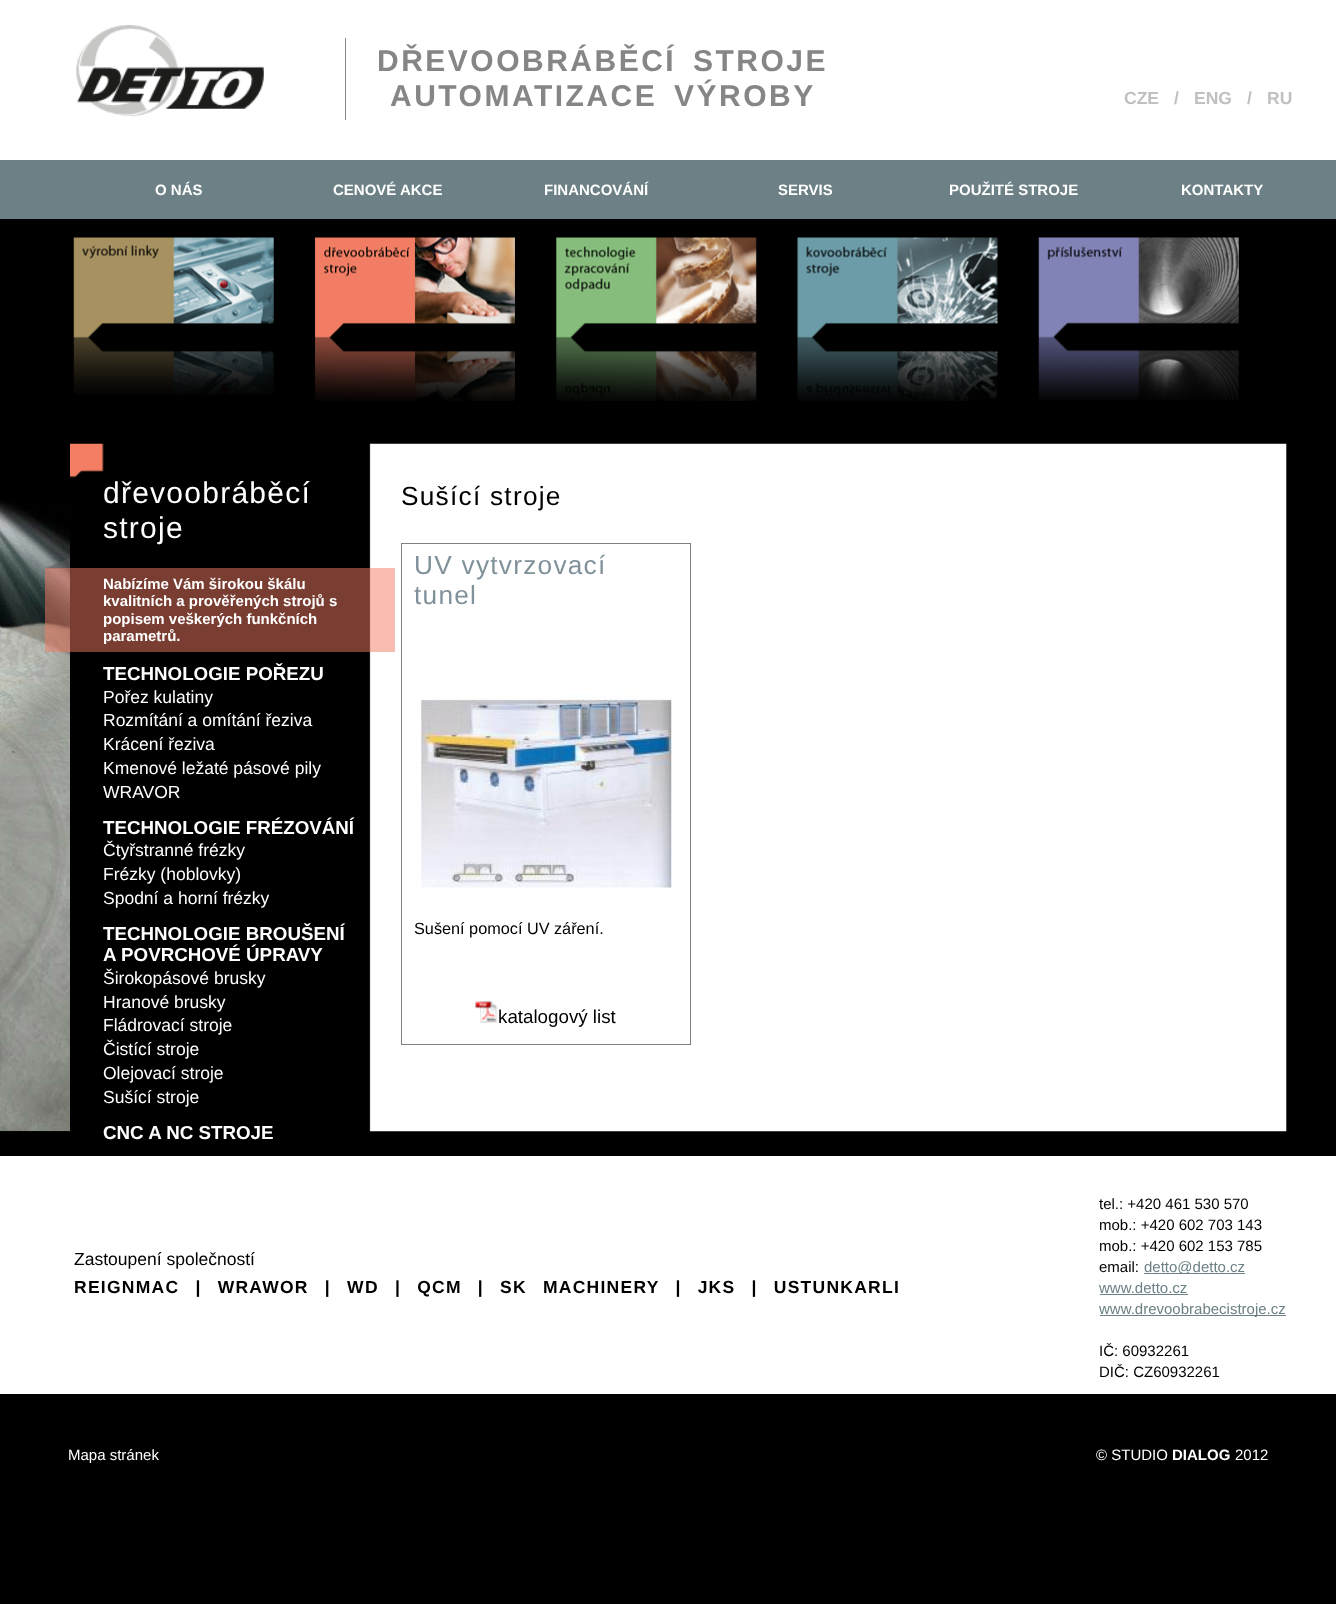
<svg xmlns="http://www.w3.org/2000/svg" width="1336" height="1604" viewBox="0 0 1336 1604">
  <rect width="100%" height="100%" fill="rgb(0,0,0)"/>
  <rect x="0" y="0" width="1336" height="160" fill="rgb(255,255,255)"/>
  <rect x="0" y="160" width="1336" height="59" fill="rgb(108,128,133)"/>
  <image x="76" y="25" width="188" height="92" href="pic1.png"/>
  <rect x="345" y="38" width="1" height="82" fill="rgb(134,134,134)"/>
  <g font-family="Liberation Sans" font-size="30" font-weight="bold" letter-spacing="2.5" fill="rgb(134,134,134)">
    <text x="377" y="71" word-spacing="6">DŘEVOOBRÁBĚCÍ STROJE</text>
    <text x="390" y="106" word-spacing="6">AUTOMATIZACE VÝROBY</text>
  </g>
  <g font-family="Liberation Sans" font-size="17.5" font-weight="bold" fill="rgb(192,192,192)">
    <text x="1124" y="104">CZE</text>
    <text x="1174" y="104">/</text>
    <text x="1194" y="104">ENG</text>
    <text x="1247" y="104">/</text>
    <text x="1267" y="104">RU</text>
  </g>
  <g font-family="Liberation Sans" font-size="15" font-weight="bold" fill="rgb(255,255,255)">
    <text x="155" y="195">O NÁS</text>
    <text x="333" y="195">CENOVÉ AKCE</text>
    <text x="544" y="195">FINANCOVÁNÍ</text>
    <text x="778" y="195">SERVIS</text>
    <text x="949" y="195">POUŽITÉ STROJE</text>
    <text x="1181" y="195">KONTAKTY</text>
  </g>
  <image x="73" y="237" width="201" height="158" href="pic2.png"/>
  <image x="315" y="237" width="200" height="164" href="pic3.png"/>
  <image x="556" y="237" width="201" height="164" href="pic4.png"/>
  <image x="797" y="237" width="201" height="164" href="pic5.png"/>
  <image x="1038" y="237" width="201" height="163" href="pic6.png"/>
  <image x="0" y="500" width="868" height="632" href="pic12.png"/>
  <image x="70" y="443" width="1217" height="689" href="pic7.png"/>
  <image x="70" y="443" width="34" height="35" href="pic8.png"/>
  <g font-family="Liberation Sans" font-size="30" letter-spacing="1.25" fill="rgb(255,255,255)">
    <text>
      <tspan x="103" y="503">dřevoobráběcí</tspan>
      <tspan x="103" y="538">stroje</tspan>
    </text>
  </g>
  <image x="45" y="557" width="25" height="12" href="pic9.png"/>
  <rect x="45" y="568" width="350" height="84" fill="rgba(241,122,100,0.5)"/>
  <g font-family="Liberation Sans" font-size="15" font-weight="bold" fill="rgb(255,255,255)">
    <text>
      <tspan x="103" y="589">Nabízíme Vám širokou škálu</tspan>
      <tspan x="103" y="606">kvalitních a prověřených strojů s</tspan>
      <tspan x="103" y="624">popisem veškerých funkčních</tspan>
      <tspan x="103" y="641">parametrů.</tspan>
    </text>
  </g>
  <text x="103" y="680" font-family="Liberation Sans" font-size="18.75" font-weight="bold" fill="rgb(255,255,255)">TECHNOLOGIE POŘEZU</text>
  <g font-family="Liberation Sans" font-size="17.5" fill="rgb(255,255,255)">
    <text>
      <tspan x="103" y="703">Pořez kulatiny</tspan>
      <tspan x="103" y="726">Rozmítání a omítání řeziva</tspan>
      <tspan x="103" y="750">Krácení řeziva</tspan>
      <tspan x="103" y="774">Kmenové ležaté pásové pily</tspan>
      <tspan x="103" y="798">WRAVOR</tspan>
    </text>
  </g>
  <text x="103" y="834" font-family="Liberation Sans" font-size="18.75" font-weight="bold" fill="rgb(255,255,255)">TECHNOLOGIE FRÉZOVÁNÍ</text>
  <g font-family="Liberation Sans" font-size="17.5" fill="rgb(255,255,255)">
    <text>
      <tspan x="103" y="856">Čtyřstranné frézky</tspan>
      <tspan x="103" y="880">Frézky (hoblovky)</tspan>
      <tspan x="103" y="904">Spodní a horní frézky</tspan>
    </text>
  </g>
  <g font-family="Liberation Sans" font-size="18.75" font-weight="bold" fill="rgb(255,255,255)">
    <text>
      <tspan x="103" y="940">TECHNOLOGIE BROUŠENÍ</tspan>
      <tspan x="103" y="961">A POVRCHOVÉ ÚPRAVY</tspan>
    </text>
  </g>
  <g font-family="Liberation Sans" font-size="17.5" fill="rgb(255,255,255)">
    <text>
      <tspan x="103" y="984">Širokopásové brusky</tspan>
      <tspan x="103" y="1008">Hranové brusky</tspan>
      <tspan x="103" y="1031">Fládrovací stroje</tspan>
      <tspan x="103" y="1055">Čistící stroje</tspan>
      <tspan x="103" y="1079">Olejovací stroje</tspan>
      <tspan x="103" y="1103">Sušící stroje</tspan>
    </text>
  </g>
  <text x="103" y="1139" font-family="Liberation Sans" font-size="18.75" font-weight="bold" fill="rgb(255,255,255)">CNC A NC STROJE</text>
  <text x="401" y="505" font-family="Liberation Sans" font-size="26.25" letter-spacing="1.25" fill="rgb(0,0,0)">Sušící stroje</text>
  <rect x="401.5" y="543.5" width="289" height="501" fill="none" stroke="rgb(128,128,128)"/>
  <g font-family="Liberation Sans" font-size="26.25" letter-spacing="1.25" fill="rgb(129,145,154)">
    <text>
      <tspan x="414" y="574">UV vytvrzovací</tspan>
      <tspan x="414" y="604">tunel</tspan>
    </text>
  </g>
  <image x="421" y="689" width="251" height="200" href="pic10.png"/>
  <text x="414" y="934" font-family="Liberation Sans" font-size="16.25" fill="rgb(0,0,0)">Sušení pomocí UV záření.</text>
  <image x="475" y="1000" width="23" height="23" href="pic11.png"/>
  <text x="498" y="1023" font-family="Liberation Sans" font-size="18.75" fill="rgb(0,0,0)">katalogový list</text>
  <rect x="0" y="1156" width="1336" height="238" fill="rgb(255,255,255)"/>
  <text x="74" y="1265" font-family="Liberation Sans" font-size="17.5" fill="rgb(0,0,0)">Zastoupení společností</text>
  <text x="74" y="1293" word-spacing="10" font-family="Liberation Sans" font-size="17.5" font-weight="bold" letter-spacing="1.25" fill="rgb(0,0,0)">REIGNMAC | WRAWOR | WD | QCM | SK MACHINERY | JKS | USTUNKARLI</text>
  <g font-family="Liberation Sans" font-size="15" fill="rgb(0,0,0)">
    <text>
      <tspan x="1099" y="1209">tel.: +420 461 530 570</tspan>
      <tspan x="1099" y="1230">mob.: +420 602 703 143</tspan>
      <tspan x="1099" y="1251">mob.: +420 602 153 785</tspan>
      <tspan x="1099" y="1272">email:</tspan>
    </text>
  </g>
  <rect x="1144" y="1273" width="101" height="1" fill="rgb(108,128,133)"/>
  <g font-family="Liberation Sans" font-size="15" fill="rgb(108,128,133)">
    <text x="1144" y="1272">detto@detto.cz</text>
    <text x="1099" y="1293">www.detto.cz</text>
  </g>
  <rect x="1100" y="1294" width="88" height="1" fill="rgb(108,128,133)"/>
  <rect x="1100" y="1315" width="186" height="1" fill="rgb(108,128,133)"/>
  <text x="1099" y="1314" font-family="Liberation Sans" font-size="15" fill="rgb(108,128,133)">www.drevoobrabecistroje.cz</text>
  <g font-family="Liberation Sans" font-size="15" fill="rgb(0,0,0)">
    <text>
      <tspan x="1099" y="1356">IČ: 60932261</tspan>
      <tspan x="1099" y="1377">DIČ: CZ60932261</tspan>
    </text>
  </g>
  <g font-family="Liberation Sans" font-size="15" fill="rgb(255,255,255)">
    <text x="68" y="1460">Mapa stránek</text>
    <text x="1096" y="1460">© STUDIO</text>
  </g>
  <text x="1172" y="1460" font-family="Liberation Sans" font-size="15" font-weight="bold" fill="rgb(255,255,255)">DIALOG</text>
  <text x="1235" y="1460" font-family="Liberation Sans" font-size="15" fill="rgb(255,255,255)">2012</text>
</svg>
